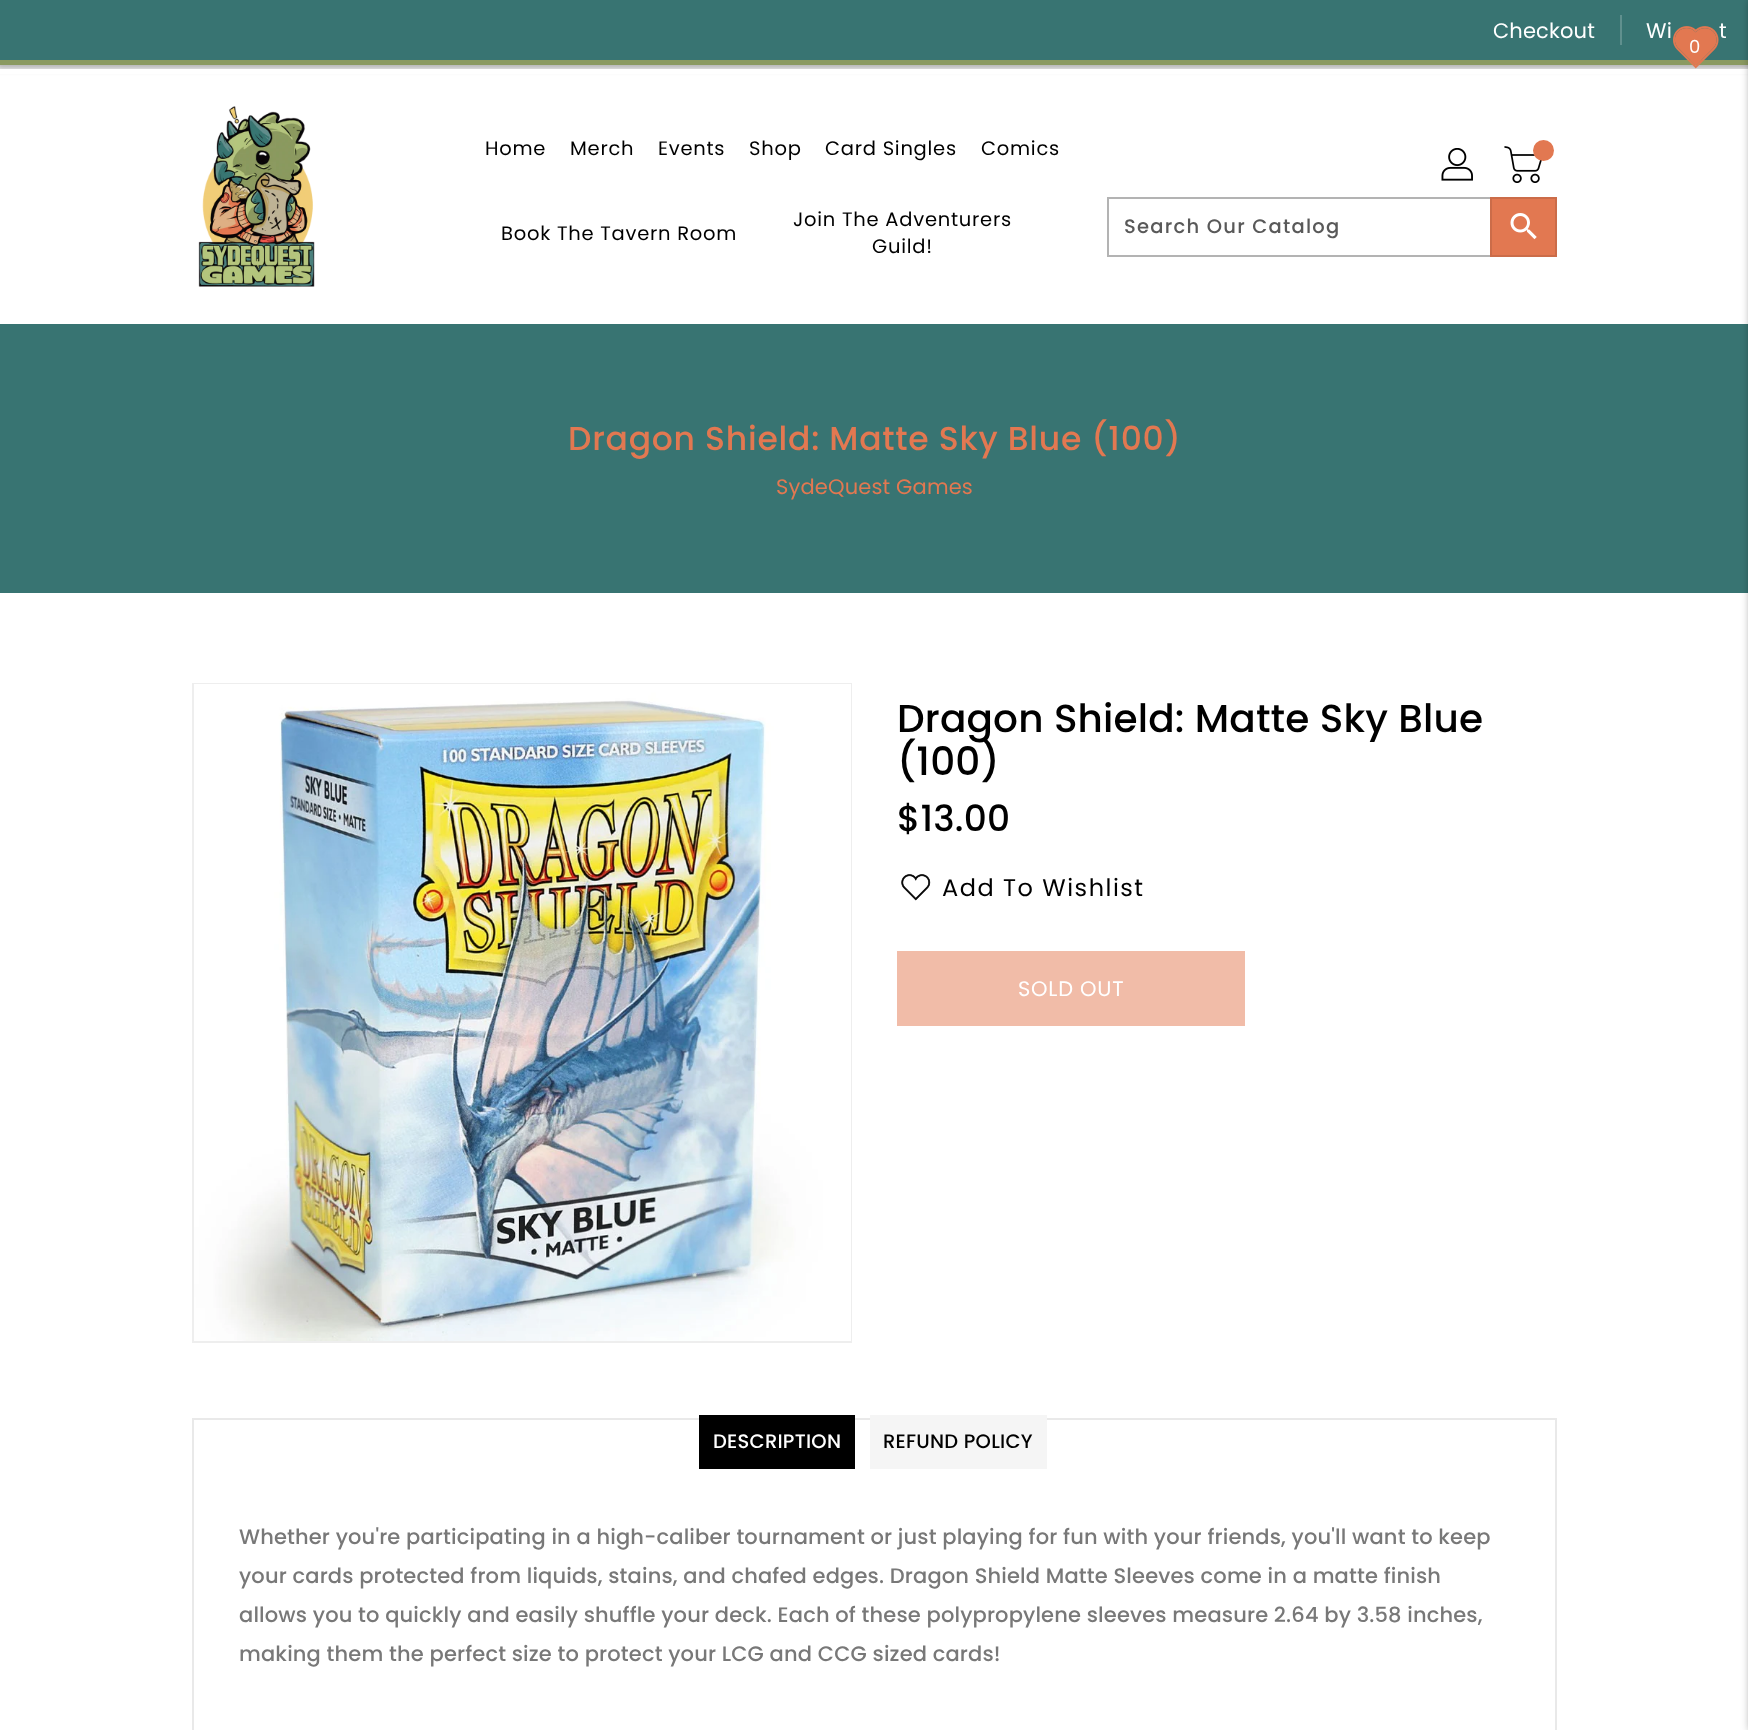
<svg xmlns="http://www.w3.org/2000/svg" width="1748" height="1730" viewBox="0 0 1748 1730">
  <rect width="100%" height="100%" fill="rgb(255,255,255)"/>
  <rect x="-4" y="-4" width="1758" height="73" fill="rgba(0,0,0,0.3)" filter="blur(3px)"/>
  <rect x="0" y="0" width="1748" height="60" fill="rgb(56,116,114)"/>
  <rect x="0" y="60" width="1748" height="5" fill="rgb(139,154,97)"/>
  <text x="1493" y="38" font-family="Poppins" font-size="21" letter-spacing="0.15" fill="rgb(255,255,255)">Checkout</text>
  <rect x="1620" y="15" width="2" height="30" fill="rgb(96,144,142)"/>
  <g font-family="Poppins" font-size="21" letter-spacing="0.15" fill="rgb(255,255,255)">
    <text x="1646" y="38">Wi</text>
    <text x="1719" y="38">t</text>
  </g>
  <rect x="0" y="69" width="1748" height="5" fill="rgb(255,255,255)"/>
  <image x="198" y="106" width="117" height="181" href="pic1.png"/>
  <g font-family="Poppins" font-size="19.5" letter-spacing="0.75" fill="rgb(0,0,0)">
    <text x="485" y="155">Home</text>
    <text x="570" y="155">Merch</text>
    <text x="658" y="155">Events</text>
    <text x="749" y="155">Shop</text>
    <text x="825" y="155">Card Singles</text>
    <text x="981" y="155">Comics</text>
    <text x="501" y="240">Book The Tavern Room</text>
    <text x="793" y="226">Join The Adventurers</text>
    <text x="872" y="253">Guild!</text>
  </g>
  <image x="1441" y="148" width="32" height="33" href="pic2.png"/>
  <image x="1504" y="146" width="38" height="37" href="pic3.png"/>
  <circle cx="1543.5" cy="150.5" r="10.5" fill="rgb(226,120,81)"/>
  <rect x="1108" y="198" width="448" height="58" fill="none" stroke="rgb(179,179,179)" stroke-width="2"/>
  <text x="1124" y="233" font-family="Poppins" font-size="19.5" font-weight="500" letter-spacing="1.25" fill="rgb(89,89,89)">Search Our Catalog</text>
  <rect x="1491" y="198" width="65" height="58" fill="rgb(226,120,81)" stroke="rgb(203,108,73)" stroke-width="2"/>
  <image x="1510" y="213" width="27" height="27" href="pic4.png"/>
  <rect x="0" y="324" width="1748" height="269" fill="rgb(56,116,114)"/>
  <text x="568" y="450" font-family="Poppins" font-size="33" font-weight="500" letter-spacing="0.75" fill="rgb(226,120,81)">Dragon Shield: Matte Sky Blue (100)</text>
  <text x="776" y="494" font-family="Poppins" font-size="21" letter-spacing="0.15" fill="rgb(226,120,81)">SydeQuest Games</text>
  <rect x="193" y="684" width="658" height="658" fill="none" stroke="rgb(238,238,238)" stroke-width="2"/>
  <image x="194" y="684" width="657" height="657" href="pic5.png"/>
  <g font-family="Poppins" font-size="39" font-weight="500" letter-spacing="0.15" fill="rgb(0,0,0)">
    <text>
      <tspan x="897" y="732">Dragon Shield: Matte Sky Blue</tspan>
      <tspan x="897" y="775">(100)</tspan>
    </text>
  </g>
  <text x="897" y="831" font-family="Poppins" font-size="36" font-weight="500" letter-spacing="0.15" fill="rgb(0,0,0)">$13.00</text>
  <image x="901" y="874" width="30" height="27" href="pic6.png"/>
  <text x="942" y="896" font-family="Poppins" font-size="24" letter-spacing="1.5" fill="rgb(0,0,0)">Add To Wishlist</text>
  <rect x="897" y="951" width="348" height="75" fill="rgb(241,188,168)"/>
  <text x="1018" y="996" font-family="Poppins" font-size="21" letter-spacing="0.75" fill="rgb(255,255,255)">SOLD OUT</text>
  <rect x="193" y="1419" width="1363" height="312" fill="none" stroke="rgb(233,233,233)" stroke-width="2"/>
  <rect x="699" y="1415" width="156" height="54" fill="rgb(0,0,0)"/>
  <text x="713" y="1448" font-family="Poppins" font-size="19.5" font-weight="500" letter-spacing="0.25" fill="rgb(255,255,255)">DESCRIPTION</text>
  <rect x="870" y="1415" width="177" height="54" fill="rgb(245,245,245)"/>
  <text x="883" y="1448" font-family="Poppins" font-size="19.5" font-weight="500" letter-spacing="0.25" fill="rgb(0,0,0)">REFUND POLICY</text>
  <g font-family="Poppins" font-size="21" font-weight="500" letter-spacing="0.15" fill="rgb(120,120,120)">
    <text>
      <tspan x="239" y="1544">Whether you're participating in a high-caliber tournament or just playing for fun with your friends, you'll want to keep</tspan>
      <tspan x="239" y="1583">your cards protected from liquids, stains, and chafed edges. Dragon Shield Matte Sleeves come in a matte finish</tspan>
      <tspan x="239" y="1622">allows you to quickly and easily shuffle your deck. Each of these polypropylene sleeves measure 2.64 by 3.58 inches,</tspan>
      <tspan x="239" y="1661">making them the perfect size to protect your LCG and CCG sized cards!</tspan>
    </text>
  </g>
  <image x="1673" y="26" width="46" height="43" href="pic7.png"/>
  <text x="1689" y="53" font-family="Poppins" font-size="18" letter-spacing="0.15" fill="rgb(255,255,255)">0</text>
  <rect x="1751" y="0" width="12" height="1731" fill="rgba(0,0,0,0.5)" filter="blur(5px)"/>
</svg>
